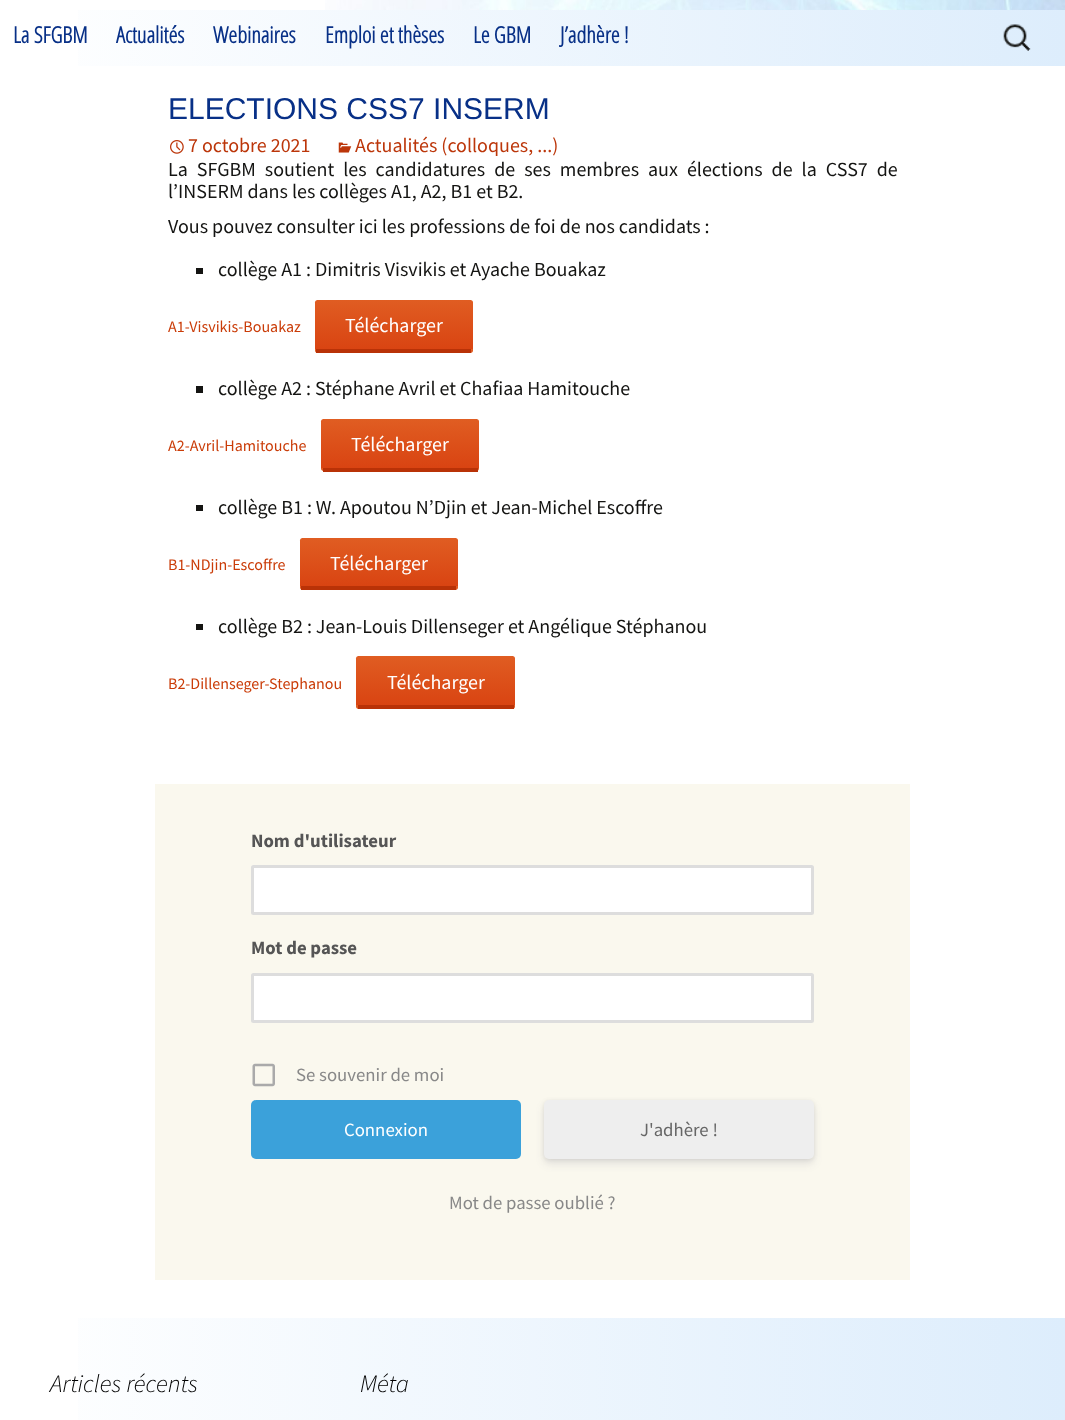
<svg xmlns="http://www.w3.org/2000/svg" width="1065" height="1420" viewBox="0 0 1065 1420">
  <defs>
    <linearGradient id="g1" gradientUnits="userSpaceOnUse" x1="0" y1="38" x2="1065" y2="38"><stop offset="0" stop-color="rgb(255,255,255)"/><stop offset="1" stop-color="rgb(221,237,252)"/></linearGradient>
    <linearGradient id="g2" gradientUnits="userSpaceOnUse" x1="394" y1="300" x2="394" y2="349"><stop offset="0" stop-color="rgb(224,93,34)"/><stop offset="1" stop-color="rgb(217,68,18)"/></linearGradient>
    <linearGradient id="g3" gradientUnits="userSpaceOnUse" x1="394" y1="349" x2="394" y2="398"><stop offset="0" stop-color="rgb(224,93,34)"/><stop offset="1" stop-color="rgb(217,68,18)"/></linearGradient>
    <linearGradient id="g4" gradientUnits="userSpaceOnUse" x1="400" y1="419" x2="400" y2="468"><stop offset="0" stop-color="rgb(224,93,34)"/><stop offset="1" stop-color="rgb(217,68,18)"/></linearGradient>
    <linearGradient id="g5" gradientUnits="userSpaceOnUse" x1="400" y1="468" x2="400" y2="516"><stop offset="0" stop-color="rgb(224,93,34)"/><stop offset="1" stop-color="rgb(217,68,18)"/></linearGradient>
    <linearGradient id="g6" gradientUnits="userSpaceOnUse" x1="379" y1="538" x2="379" y2="586"><stop offset="0" stop-color="rgb(224,93,34)"/><stop offset="1" stop-color="rgb(217,68,18)"/></linearGradient>
    <linearGradient id="g7" gradientUnits="userSpaceOnUse" x1="379" y1="586" x2="379" y2="635"><stop offset="0" stop-color="rgb(224,93,34)"/><stop offset="1" stop-color="rgb(217,68,18)"/></linearGradient>
    <linearGradient id="g8" gradientUnits="userSpaceOnUse" x1="436" y1="656" x2="436" y2="705"><stop offset="0" stop-color="rgb(224,93,34)"/><stop offset="1" stop-color="rgb(217,68,18)"/></linearGradient>
    <linearGradient id="g9" gradientUnits="userSpaceOnUse" x1="436" y1="705" x2="436" y2="754"><stop offset="0" stop-color="rgb(224,93,34)"/><stop offset="1" stop-color="rgb(217,68,18)"/></linearGradient>
    <linearGradient id="g10" gradientUnits="userSpaceOnUse" x1="0" y1="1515" x2="1065" y2="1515"><stop offset="0" stop-color="rgb(255,255,255)"/><stop offset="1" stop-color="rgb(221,237,252)"/></linearGradient>
  </defs>
  <rect width="100%" height="100%" fill="rgb(255,255,255)"/>
  <image x="325" y="0" width="740" height="10" href="pic1.png"/>
  <rect x="78" y="10" width="987" height="56" fill="url(#g1)"/>
  <g font-family="Open Sans Condensed" font-size="22.5" font-weight="bold" fill="rgb(8,48,135)">
    <text x="13" y="43">La SFGBM</text>
    <text x="116" y="43">Actualités</text>
    <text x="213" y="43">Webinaires</text>
    <text x="325" y="43">Emploi et thèses</text>
    <text x="473" y="43">Le GBM</text>
    <text x="560" y="43">J’adhère !</text>
  </g>
  <image x="1003" y="24" width="28" height="27" href="pic2.png"/>
  <text x="168" y="119" font-family="Liberation Sans" font-size="30" fill="rgb(8,48,135)">ELECTIONS CSS7 INSERM</text>
  <image x="170" y="140" width="14" height="14" href="pic3.png"/>
  <text x="188" y="152" font-family="Source Sans Pro" font-size="20" fill="rgb(188,54,10)">7 octobre 2021</text>
  <image x="338" y="142" width="14" height="11" href="pic4.png"/>
  <text x="355" y="152" font-family="Source Sans Pro" font-size="20" fill="rgb(188,54,10)">Actualités (colloques, ...)</text>
  <g font-family="Source Sans Pro" font-size="20" fill="rgb(20,20,18)">
    <text>
      <tspan x="168" y="176" word-spacing="5">La SFGBM soutient les candidatures de ses membres aux élections de la CSS7 de</tspan>
      <tspan x="168" y="198">l’INSERM dans les collèges A1, A2, B1 et B2.</tspan>
      <tspan x="168" y="233">Vous pouvez consulter ici les professions de foi de nos candidats :</tspan>
    </text>
  </g>
  <rect x="196" y="268" width="7" height="6" fill="rgb(20,20,18)"/>
  <text x="218" y="276" font-family="Source Sans Pro" font-size="20" fill="rgb(20,20,18)">collège A1 : Dimitris Visvikis et Ayache Bouakaz</text>
  <text x="168" y="332" font-family="Source Sans Pro" font-size="16" fill="rgb(202,60,8)">A1-Visvikis-Bouakaz</text>
  <path d="M317.5 300H470.5C472 300 473 301 473 302.5V349H315V302.5C315 301 316 300 317.5 300Z" fill="url(#g2)"/>
  <path d="M315 349H473V350.5C473 352 472 353 470.5 353H317.5C316 353 315 352 315 350.5Z" fill="url(#g3)"/>
  <rect x="316" y="349" width="155" height="4" fill="rgb(185,50,7)"/>
  <text x="345" y="332" font-family="Source Sans Pro" font-size="20" fill="rgb(255,255,255)">Télécharger</text>
  <rect x="196" y="386" width="7" height="7" fill="rgb(20,20,18)"/>
  <text x="218" y="395" font-family="Source Sans Pro" font-size="20" fill="rgb(20,20,18)">collège A2 : Stéphane Avril et Chafiaa Hamitouche</text>
  <text x="168" y="451" font-family="Source Sans Pro" font-size="16" fill="rgb(202,60,8)">A2-Avril-Hamitouche</text>
  <path d="M323.5 419H476.5C478 419 479 420 479 421.5V468H321V421.5C321 420 322 419 323.5 419Z" fill="url(#g4)"/>
  <path d="M321 468H479V468.5C479 470 478 471 476.5 471H323.5C322 471 321 470 321 468.5Z" fill="url(#g5)"/>
  <rect x="323" y="468" width="155" height="4" fill="rgb(185,50,7)"/>
  <text x="351" y="451" font-family="Source Sans Pro" font-size="20" fill="rgb(255,255,255)">Télécharger</text>
  <rect x="196" y="505" width="7" height="6" fill="rgb(20,20,18)"/>
  <text x="218" y="514" font-family="Source Sans Pro" font-size="20" fill="rgb(20,20,18)">collège B1 : W. Apoutou N’Djin et Jean-Michel Escoffre</text>
  <text x="168" y="570" font-family="Source Sans Pro" font-size="16" fill="rgb(202,60,8)">B1-NDjin-Escoffre</text>
  <path d="M302.5 538H455.5C457 538 458 539 458 540.5V586H300V540.5C300 539 301 538 302.5 538Z" fill="url(#g6)"/>
  <path d="M300 586H458V587.5C458 589 457 590 455.5 590H302.5C301 590 300 589 300 587.5Z" fill="url(#g7)"/>
  <rect x="301" y="586" width="155" height="4" fill="rgb(185,50,7)"/>
  <text x="330" y="570" font-family="Source Sans Pro" font-size="20" fill="rgb(255,255,255)">Télécharger</text>
  <rect x="196" y="624" width="7" height="6" fill="rgb(20,20,18)"/>
  <text x="218" y="633" font-family="Source Sans Pro" font-size="20" fill="rgb(20,20,18)">collège B2 : Jean-Louis Dillenseger et Angélique Stéphanou</text>
  <text x="168" y="689" font-family="Source Sans Pro" font-size="16" fill="rgb(202,60,8)">B2-Dillenseger-Stephanou</text>
  <path d="M358.5 656H512.5C514 656 515 657 515 658.5V705H356V658.5C356 657 357 656 358.5 656Z" fill="url(#g8)"/>
  <path d="M356 705H515V706.5C515 708 514 709 512.5 709H358.5C357 709 356 708 356 706.5Z" fill="url(#g9)"/>
  <rect x="358" y="705" width="156" height="4" fill="rgb(185,50,7)"/>
  <text x="387" y="689" font-family="Source Sans Pro" font-size="20" fill="rgb(255,255,255)">Télécharger</text>
  <rect x="155" y="784" width="755" height="496" fill="rgb(250,248,238)"/>
  <text x="251" y="847" font-family="Source Sans Pro" font-size="18.75" font-weight="bold" fill="rgb(85,85,85)">Nom d'utilisateur</text>
  <rect x="252.5" y="866.5" width="560" height="47" rx="1" fill="rgb(255,255,255)" stroke="rgb(221,221,221)" stroke-width="3"/>
  <text x="251" y="954" font-family="Source Sans Pro" font-size="18.75" font-weight="bold" fill="rgb(85,85,85)">Mot de passe</text>
  <rect x="252.5" y="974.5" width="560" height="47" rx="1" fill="rgb(255,255,255)" stroke="rgb(221,221,221)" stroke-width="3"/>
  <image x="252" y="1063" width="23" height="24" href="pic5.png"/>
  <text x="296" y="1081" font-family="Source Sans Pro" font-size="18.75" fill="rgb(136,136,136)">Se souvenir de moi</text>
  <rect x="251" y="1100" width="270" height="59" rx="5" fill="rgb(59,161,218)"/>
  <text x="344" y="1136" font-family="Source Sans Pro" font-size="18.75" fill="rgb(255,255,255)">Connexion</text>
  <rect x="544" y="1101" width="270" height="59" rx="5" fill="rgba(0,0,0,0.08)" filter="blur(2px)"/>
  <rect x="544" y="1105" width="270" height="59" rx="5" fill="rgba(50,50,93,0.11)" filter="blur(4px)"/>
  <rect x="544" y="1100" width="270" height="59" rx="5" fill="rgb(238,238,238)"/>
  <text x="640" y="1136" font-family="Source Sans Pro" font-size="18.75" fill="rgb(102,102,102)">J'adhère !</text>
  <text x="449" y="1209" font-family="Source Sans Pro" font-size="18.75" fill="rgb(136,136,136)">Mot de passe oublié ?</text>
  <rect x="78" y="1318" width="987" height="102" fill="url(#g10)"/>
  <g font-family="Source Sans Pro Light" font-size="25" font-weight="300" font-style="italic" fill="rgb(0,0,0)">
    <text x="50" y="1392">Articles récents</text>
    <text x="360" y="1392">Méta</text>
  </g>
</svg>
